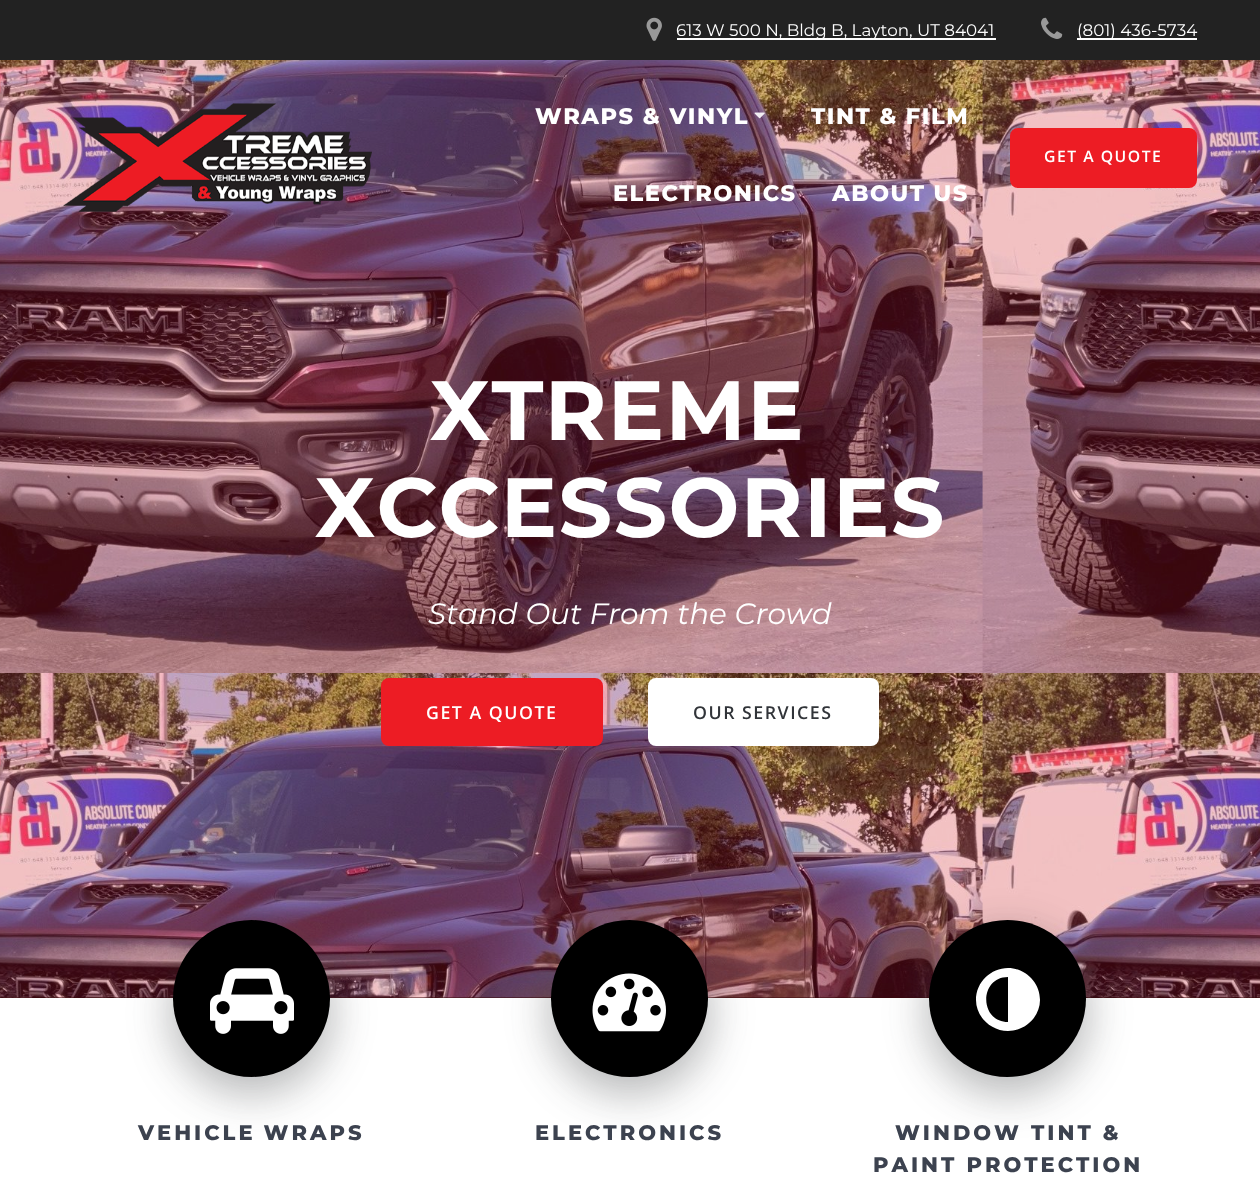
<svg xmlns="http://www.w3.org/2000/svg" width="1260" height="1188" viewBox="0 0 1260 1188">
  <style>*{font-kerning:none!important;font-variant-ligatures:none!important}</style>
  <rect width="100%" height="100%" fill="rgb(57,7,9)"/>
  <rect x="0" y="0" width="1260" height="60" fill="rgb(34,34,34)"/>
  <image x="646" y="17" width="16" height="24" href="pic1.png"/>
  <rect x="677" y="38" width="319" height="2" fill="rgb(255,255,255)"/>
  <text x="676" y="36" font-family="Montserrat" font-size="16.75" fill="rgb(255,255,255)">613 W 500 N, Bldg B, Layton, UT 84041</text>
  <image x="1041" y="17" width="22" height="22" href="pic2.png"/>
  <rect x="1077" y="38" width="120" height="2" fill="rgb(255,255,255)"/>
  <text x="1077" y="36" font-family="Montserrat" font-size="16.75" fill="rgb(255,255,255)">(801) 436-5734</text>
  <image x="0" y="60" width="1260" height="938" href="pic5.png"/>
  <image x="63" y="103" width="309" height="109" href="pic3.png"/>
  <text x="535" y="124" font-family="Montserrat" font-size="22.5" font-weight="800" letter-spacing="1.5" fill="rgb(255,255,255)">WRAPS &amp; VINYL</text>
  <image x="754" y="112" width="11" height="7" href="pic4.png"/>
  <g font-family="Montserrat" font-size="22.5" font-weight="800" letter-spacing="1.5" fill="rgb(255,255,255)">
    <text x="811" y="124">TINT &amp; FILM</text>
    <text x="613" y="201">ELECTRONICS</text>
    <text x="832" y="201">ABOUT US</text>
  </g>
  <rect x="1011.5" y="129.5" width="184" height="57" rx="6.5" fill="rgb(237,28,36)" stroke="rgb(237,28,36)" stroke-width="3"/>
  <text x="1044" y="162" font-family="Open Sans" font-size="15.75" font-weight="600" letter-spacing="1.5" fill="rgb(255,255,255)">GET A QUOTE</text>
  <g font-family="Montserrat" font-size="84" font-weight="bold" letter-spacing="1.4" fill="rgb(255,255,255)">
    <text x="430" y="440">XTREME</text>
    <text x="315" y="537">XCCESSORIES</text>
  </g>
  <text x="428" y="624" font-family="Montserrat" font-size="29.4" font-style="italic" fill="rgb(255,255,255)">Stand Out From the Crowd</text>
  <rect x="382.5" y="679.5" width="219" height="65" rx="6.5" fill="rgb(237,28,36)" stroke="rgb(237,28,36)" stroke-width="3"/>
  <text x="426" y="719" font-family="Open Sans" font-size="17.75" font-weight="600" letter-spacing="1.5" fill="rgb(255,255,255)">GET A QUOTE</text>
  <rect x="649.5" y="679.5" width="228" height="65" rx="6.5" fill="rgb(255,255,255)" stroke="rgb(255,255,255)" stroke-width="3"/>
  <text x="693" y="719" font-family="Open Sans" font-size="17.75" font-weight="600" letter-spacing="1.5" fill="rgb(49,52,57)">OUR SERVICES</text>
  <rect x="0" y="998" width="1260" height="190" fill="rgb(255,255,255)"/>
  <rect x="173" y="935" width="157" height="157" rx="78.5" fill="rgba(0,0,0,0.08)" filter="blur(22.5px)"/>
  <rect x="173" y="935" width="157" height="157" rx="78.5" fill="rgba(49,52,57,0.3)" filter="blur(22.5px)"/>
  <circle cx="251.5" cy="998.5" r="78.5" fill="rgb(0,0,0)"/>
  <image x="210" y="968" width="84" height="66" href="pic6.png"/>
  <text x="138" y="1140" word-spacing="-1" font-family="Montserrat" font-size="21" font-weight="800" letter-spacing="3" fill="rgb(60,66,79)">VEHICLE WRAPS</text>
  <rect x="551" y="935" width="157" height="157" rx="78.5" fill="rgba(0,0,0,0.08)" filter="blur(22.5px)"/>
  <rect x="551" y="935" width="157" height="157" rx="78.5" fill="rgba(49,52,57,0.3)" filter="blur(22.5px)"/>
  <circle cx="629.5" cy="998.5" r="78.5" fill="rgb(0,0,0)"/>
  <image x="592" y="973" width="74" height="59" href="pic7.png"/>
  <text x="535" y="1140" font-family="Montserrat" font-size="21" font-weight="800" letter-spacing="3" fill="rgb(60,66,79)">ELECTRONICS</text>
  <rect x="929" y="935" width="157" height="157" rx="78.5" fill="rgba(0,0,0,0.08)" filter="blur(22.5px)"/>
  <rect x="929" y="935" width="157" height="157" rx="78.5" fill="rgba(49,52,57,0.3)" filter="blur(22.5px)"/>
  <circle cx="1007.5" cy="998.5" r="78.5" fill="rgb(0,0,0)"/>
  <path d="M1008 1022C979 1022 979 977 1008 977ZM1040 1000C1040 982 1025 968 1008 968C991 968 976 982 976 1000C976 1017 991 1031 1008 1031C1025 1031 1040 1017 1040 1000Z" fill="rgb(255,255,255)"/>
  <g font-family="Montserrat" font-size="21" font-weight="800" letter-spacing="3" fill="rgb(60,66,79)">
    <text x="895" y="1140">WINDOW TINT &amp;</text>
    <text x="873" y="1172">PAINT PROTECTION</text>
  </g>
</svg>
